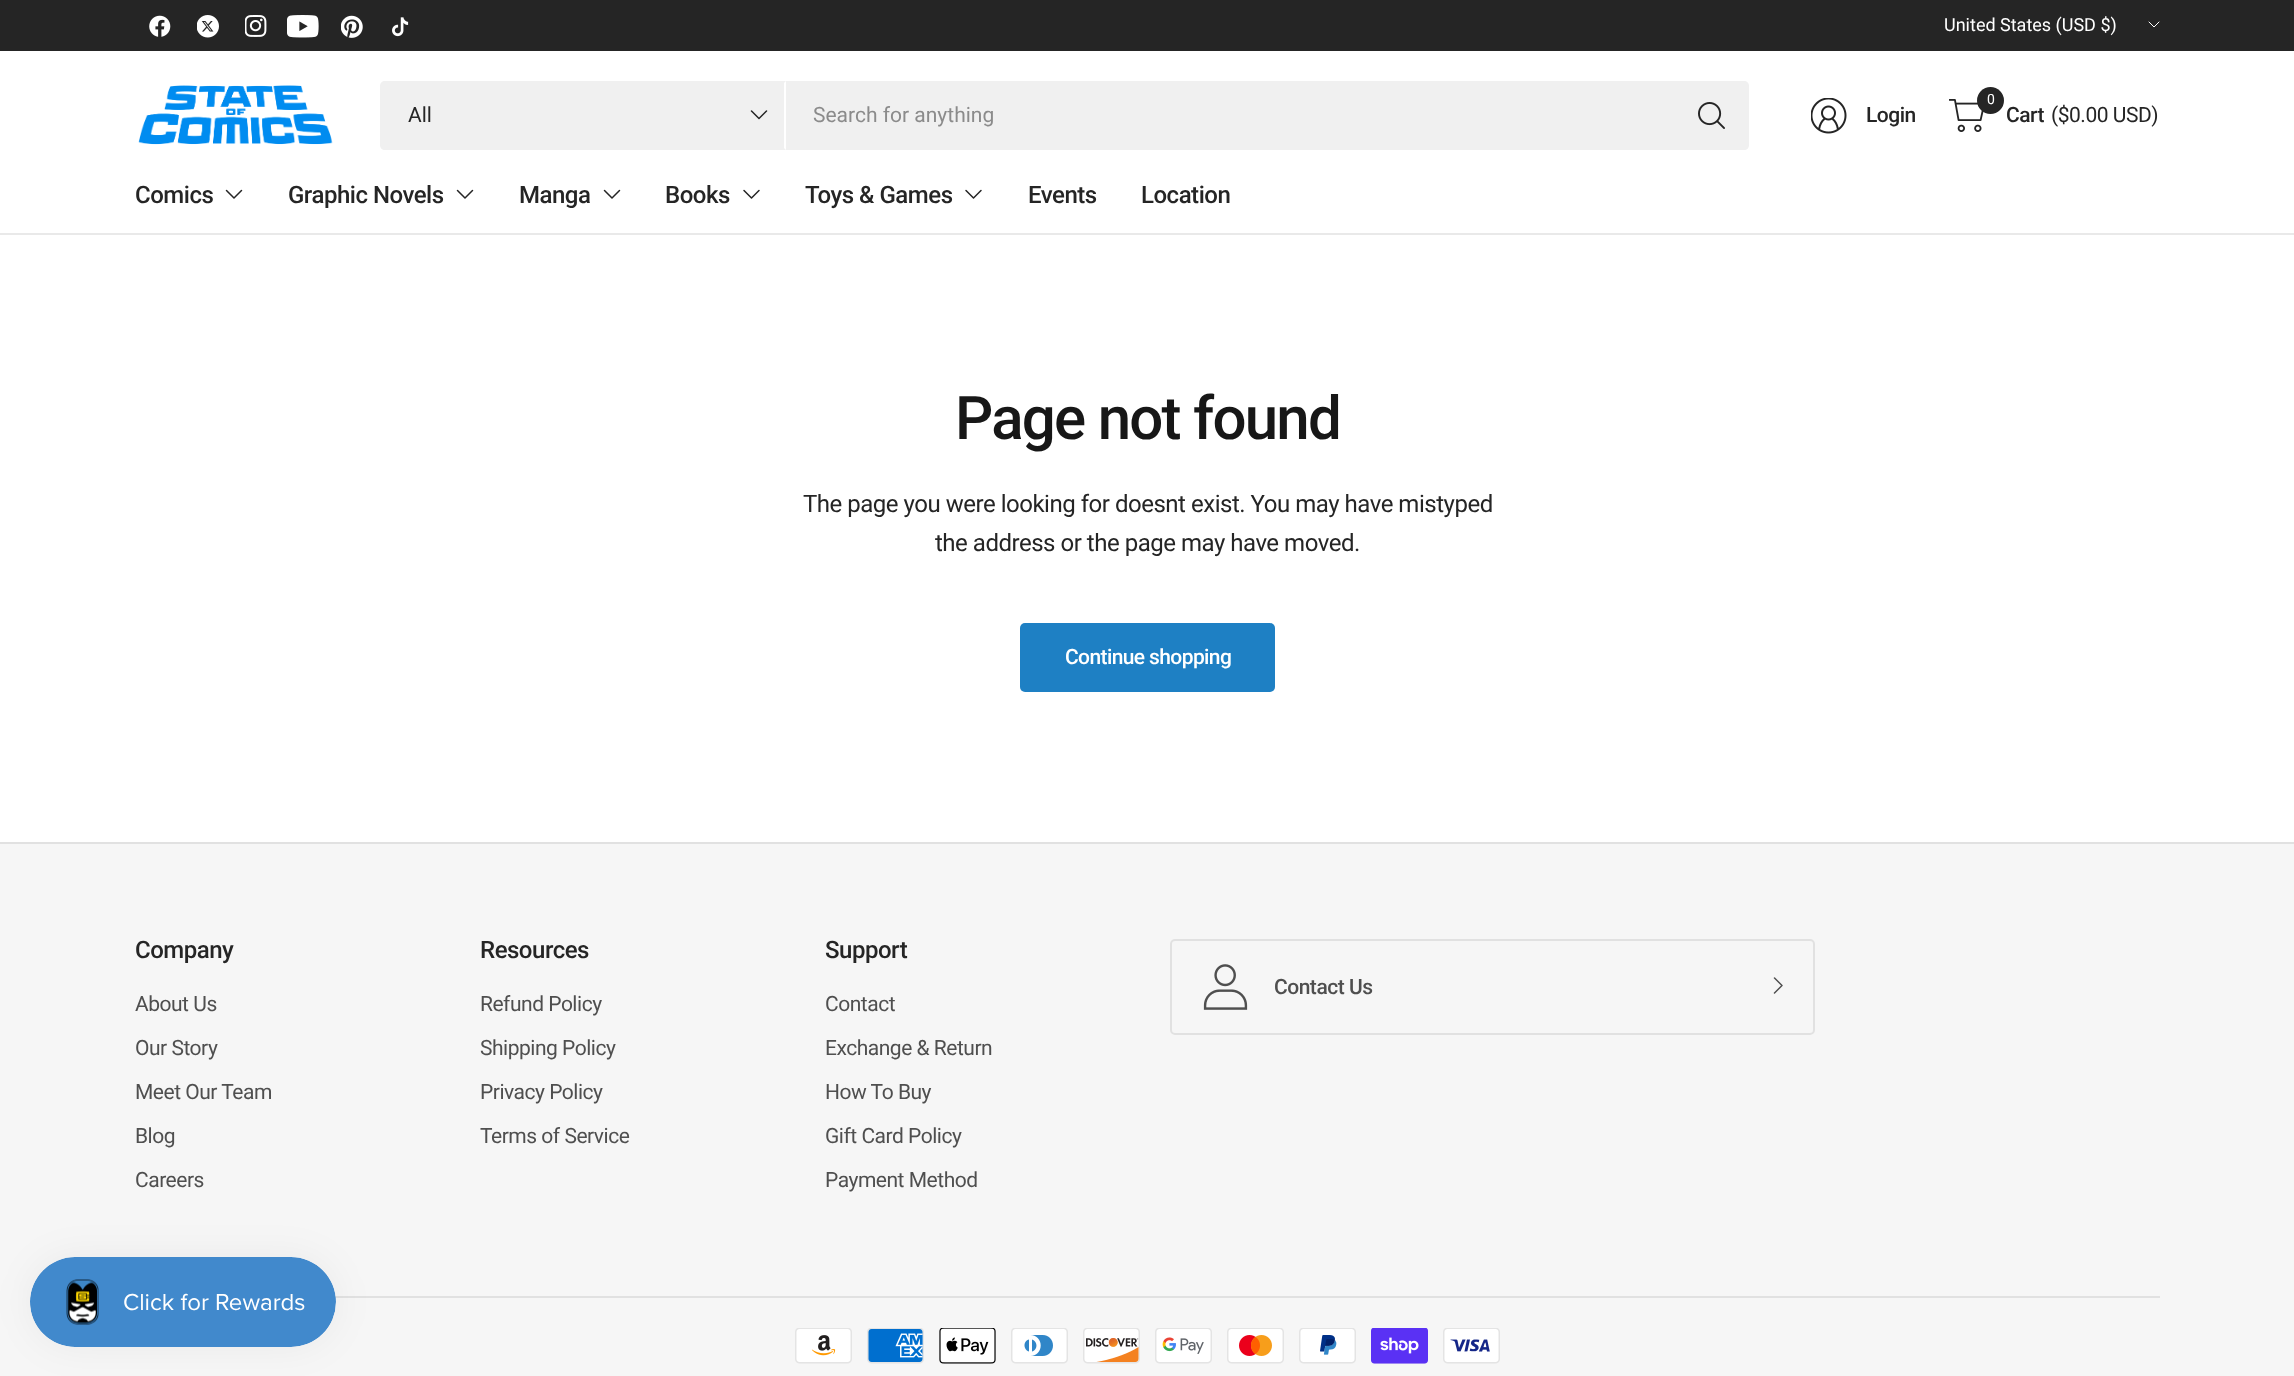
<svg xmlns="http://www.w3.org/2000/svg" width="2294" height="1376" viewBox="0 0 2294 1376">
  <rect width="100%" height="100%" fill="rgb(255,255,255)"/>
  <rect x="0" y="0" width="2294" height="51" fill="rgb(37,37,37)"/>
  <image x="149" y="15" width="22" height="22" href="pic1.png"/>
  <image x="197" y="15" width="22" height="23" href="pic2.png"/>
  <image x="245" y="15" width="22" height="22" href="pic3.png"/>
  <image x="287" y="15" width="32" height="23" href="pic4.png"/>
  <image x="341" y="15" width="22" height="23" href="pic5.png"/>
  <image x="392" y="17" width="17" height="20" href="pic6.png"/>
  <text x="1944" y="31" font-family="Roboto" font-size="18" fill="rgb(255,255,255)">United States (USD $)</text>
  <path d="M2159 22L2154 27L2149 22" fill="none" stroke="rgb(255,255,255)" stroke-linecap="round" stroke-linejoin="round"/>
  <image x="138" y="85" width="195" height="60" href="pic7.png"/>
  <path d="M385 81H786V150H385C382 150 380 148 380 145V86C380 83 382 81 385 81Z" fill="rgb(240,240,240)"/>
  <path d="M786 81L784 83V148L786 150Z" fill="rgb(255,255,255)"/>
  <text x="408" y="122" font-family="Roboto" font-size="21" fill="rgb(37,37,37)">All</text>
  <path d="M766.5 111L759 118.5L751.5 111" fill="none" stroke="rgb(37,37,37)" stroke-width="1.5" stroke-linecap="round" stroke-linejoin="round"/>
  <path d="M786 81H1744C1747 81 1749 83 1749 86V145C1749 148 1747 150 1744 150H786Z" fill="rgb(240,240,240)"/>
  <text x="813" y="122" font-family="Roboto" font-size="21" fill="rgb(139,139,139)">Search for anything</text>
  <image x="1698" y="102" width="27" height="27" href="pic8.png"/>
  <image x="1811" y="98" width="36" height="36" href="pic9.png"/>
  <text x="1866" y="122" font-family="Roboto" font-size="21" font-weight="500" letter-spacing="-0.48" fill="rgb(37,37,37)">Login</text>
  <image x="1949" y="99" width="35" height="33" href="pic10.png"/>
  <circle cx="1990.5" cy="100.5" r="13.5" fill="rgb(37,37,37)"/>
  <text x="1987" y="104" font-family="Roboto" font-size="14" letter-spacing="-0.48" fill="rgb(255,255,255)">0</text>
  <text x="2006" y="122" font-family="Roboto" font-size="21" font-weight="500" letter-spacing="-0.48" fill="rgb(37,37,37)">Cart</text>
  <text x="2051" y="122" font-family="Roboto" font-size="21" letter-spacing="-0.48" fill="rgb(37,37,37)">($0.00 USD)</text>
  <text x="135" y="203" font-family="Roboto" font-size="24" font-weight="500" letter-spacing="-0.48" fill="rgb(37,37,37)">Comics</text>
  <path d="M241.5 190.5L234 198L226.5 190.5" fill="none" stroke="rgb(37,37,37)" stroke-width="1.5" stroke-linecap="round" stroke-linejoin="round"/>
  <text x="288" y="203" font-family="Roboto" font-size="24" font-weight="500" letter-spacing="-0.48" fill="rgb(37,37,37)">Graphic Novels</text>
  <path d="M472.5 190.5L465 198L457.5 190.5" fill="none" stroke="rgb(37,37,37)" stroke-width="1.5" stroke-linecap="round" stroke-linejoin="round"/>
  <text x="519" y="203" font-family="Roboto" font-size="24" font-weight="500" letter-spacing="-0.48" fill="rgb(37,37,37)">Manga</text>
  <path d="M619.5 190.5L612 198L604.5 190.5" fill="none" stroke="rgb(37,37,37)" stroke-width="1.5" stroke-linecap="round" stroke-linejoin="round"/>
  <text x="665" y="203" font-family="Roboto" font-size="24" font-weight="500" letter-spacing="-0.48" fill="rgb(37,37,37)">Books</text>
  <path d="M759 190.5L751.5 198L744 190.5" fill="none" stroke="rgb(37,37,37)" stroke-width="1.5" stroke-linecap="round" stroke-linejoin="round"/>
  <text x="805" y="203" font-family="Roboto" font-size="24" font-weight="500" letter-spacing="-0.48" fill="rgb(37,37,37)">Toys &amp; Games</text>
  <path d="M981 190.5L973.5 198L966 190.5" fill="none" stroke="rgb(37,37,37)" stroke-width="1.5" stroke-linecap="round" stroke-linejoin="round"/>
  <g font-family="Roboto" font-size="24" font-weight="500" letter-spacing="-0.48" fill="rgb(37,37,37)">
    <text x="1028" y="203">Events</text>
    <text x="1141" y="203">Location</text>
  </g>
  <rect x="0" y="233" width="2294" height="2" fill="rgb(233,233,233)"/>
  <text x="955" y="439" font-family="Roboto" font-size="60" font-weight="500" letter-spacing="-1.75" fill="rgb(23,23,23)">Page not found</text>
  <g font-family="Roboto" font-size="24" letter-spacing="-0.48" fill="rgb(37,37,37)">
    <text x="803" y="512">The page you were looking for doesnt exist. You may have mistyped</text>
    <text x="935" y="551">the address or the page may have moved.</text>
  </g>
  <rect x="1020" y="623" width="255" height="69" rx="5" fill="rgb(30,128,196)"/>
  <text x="1065" y="664" font-family="Roboto" font-size="21" font-weight="500" letter-spacing="-0.6" fill="rgb(255,255,255)">Continue shopping</text>
  <rect x="0" y="842" width="2294" height="2" fill="rgb(225,225,225)"/>
  <rect x="0" y="844" width="2294" height="532" fill="rgb(246,246,246)"/>
  <text x="135" y="958" font-family="Roboto" font-size="24" font-weight="500" letter-spacing="-0.48" fill="rgb(37,37,37)">Company</text>
  <g font-family="Roboto" font-size="21" letter-spacing="-0.48" fill="rgb(79,79,79)">
    <text x="135" y="1011">About Us</text>
    <text x="135" y="1055">Our Story</text>
    <text x="135" y="1099">Meet Our Team</text>
    <text x="135" y="1143">Blog</text>
    <text x="135" y="1187">Careers</text>
  </g>
  <text x="480" y="958" font-family="Roboto" font-size="24" font-weight="500" letter-spacing="-0.48" fill="rgb(37,37,37)">Resources</text>
  <g font-family="Roboto" font-size="21" letter-spacing="-0.48" fill="rgb(79,79,79)">
    <text x="480" y="1011">Refund Policy</text>
    <text x="480" y="1055">Shipping Policy</text>
    <text x="480" y="1099">Privacy Policy</text>
    <text x="480" y="1143">Terms of Service</text>
  </g>
  <text x="825" y="958" font-family="Roboto" font-size="24" font-weight="500" letter-spacing="-0.48" fill="rgb(37,37,37)">Support</text>
  <g font-family="Roboto" font-size="21" letter-spacing="-0.48" fill="rgb(79,79,79)">
    <text x="825" y="1011">Contact</text>
    <text x="825" y="1055">Exchange &amp; Return</text>
    <text x="825" y="1099">How To Buy</text>
    <text x="825" y="1143">Gift Card Policy</text>
    <text x="825" y="1187">Payment Method</text>
  </g>
  <rect x="1171" y="940" width="643" height="94" rx="4" fill="none" stroke="rgb(225,225,225)" stroke-width="2"/>
  <image x="1203" y="964" width="45" height="46" href="pic11.png"/>
  <text x="1274" y="994" font-family="Roboto" font-size="21" font-weight="500" letter-spacing="-0.48" fill="rgb(79,79,79)">Contact Us</text>
  <path d="M1774.5 978L1782 985.5L1774.5 993" fill="none" stroke="rgb(79,79,79)" stroke-width="1.5" stroke-linecap="round" stroke-linejoin="round"/>
  <rect x="335" y="1296" width="1825" height="2" fill="rgb(225,225,225)"/>
  <image x="795" y="1328" width="57" height="36" href="pic12.png"/>
  <image x="867" y="1328" width="57" height="36" href="pic13.png"/>
  <image x="939" y="1328" width="57" height="36" href="pic14.png"/>
  <image x="1011" y="1328" width="57" height="36" href="pic15.png"/>
  <image x="1083" y="1328" width="57" height="36" href="pic16.png"/>
  <image x="1155" y="1328" width="57" height="36" href="pic17.png"/>
  <image x="1227" y="1328" width="57" height="36" href="pic18.png"/>
  <image x="1299" y="1328" width="57" height="36" href="pic19.png"/>
  <image x="1371" y="1328" width="57" height="36" href="pic20.png"/>
  <image x="1443" y="1328" width="57" height="36" href="pic21.png"/>
  <rect x="30" y="1257" width="306" height="90" rx="45" fill="rgba(0,0,0,0.05)" filter="blur(19px)"/>
  <image x="30" y="1257" width="306" height="90" href="pic22.png"/>
</svg>
